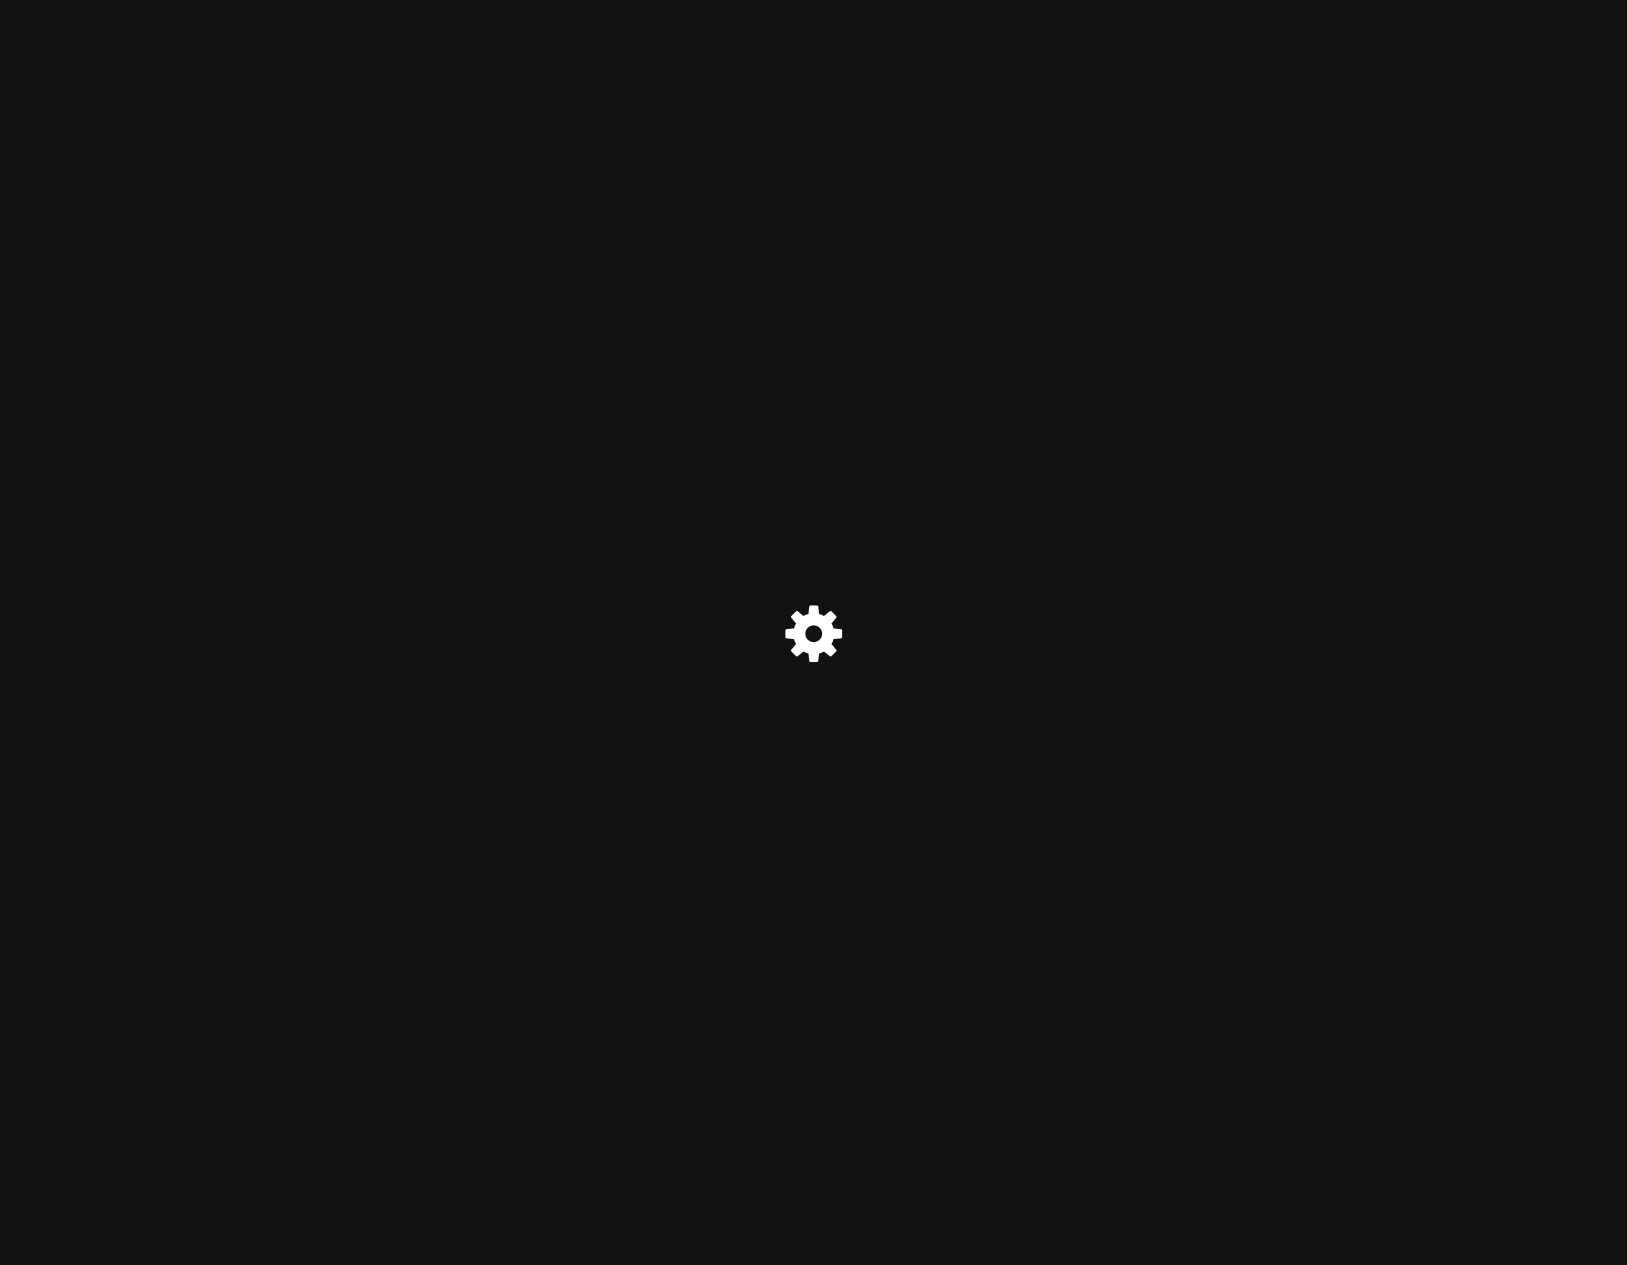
<svg xmlns="http://www.w3.org/2000/svg" width="1627" height="1265" viewBox="0 0 1627 1265">
  <rect width="100%" height="100%" fill="rgb(17,17,17)"/>
  <image x="785" y="605" width="58" height="58" href="pic1.png"/>
</svg>
